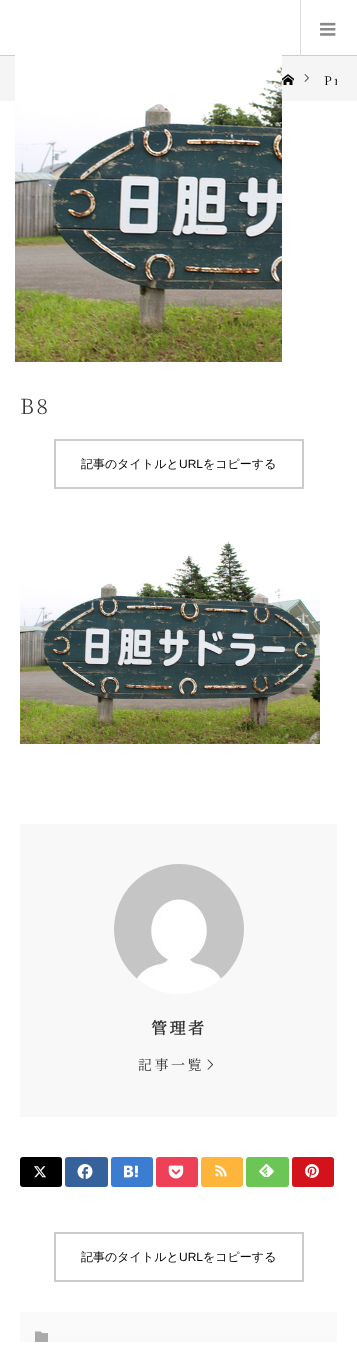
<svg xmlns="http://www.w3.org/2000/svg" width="357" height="1364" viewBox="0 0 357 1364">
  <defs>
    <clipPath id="clip1"><rect x="282" y="56" width="55" height="45"/></clipPath>
  </defs>
  <rect width="100%" height="100%" fill="rgb(255,255,255)"/>
  <rect x="0" y="55" width="357" height="1" fill="rgb(204,204,204)"/>
  <rect x="300" y="0" width="1" height="56" fill="rgb(221,221,221)"/>
  <image x="320" y="22" width="16" height="14" href="pic1.png"/>
  <rect x="0" y="56" width="357" height="45" fill="rgb(245,245,245)"/>
  <image x="15" y="55" width="267" height="307" href="pic2.png"/>
  <image x="282" y="74" width="12" height="11" href="pic3.png"/>
  <image x="304" y="74" width="5" height="8" href="pic4.png"/>
  <g clip-path="url(#clip1)">
    <text x="324" y="85" font-family="Noto Serif JP" font-size="12" letter-spacing="2.5" fill="rgb(0,0,0)">Pr</text>
  </g>
  <text x="20" y="414" font-family="Noto Serif JP" font-size="21" font-weight="300" letter-spacing="2.5" fill="rgb(51,51,51)">B8</text>
  <rect x="55" y="440" width="248" height="48" fill="none" stroke="rgb(204,204,204)" stroke-width="2"/>
  <text x="81" y="468" font-family="WenQuanYi Zen Hei" font-size="12" font-weight="500" fill="rgb(0,0,0)">記事のタイトルと</text>
  <text x="179" y="468" font-family="Liberation Sans" font-size="12" fill="rgb(0,0,0)">URL</text>
  <text x="203" y="468" font-family="WenQuanYi Zen Hei" font-size="12" font-weight="500" fill="rgb(0,0,0)">をコピーする</text>
  <image x="20" y="541" width="300" height="203" href="pic5.png"/>
  <rect x="20" y="824" width="317" height="293" fill="rgb(248,248,248)"/>
  <image x="114" y="864" width="130" height="130" href="pic6.png"/>
  <text x="151" y="1034" font-family="Noto Serif JP" font-size="16" font-weight="bold" letter-spacing="2.5" fill="rgb(51,51,51)">管理者</text>
  <text x="138" y="1070" font-family="Noto Serif JP" font-size="14" letter-spacing="2.5" fill="rgb(51,51,51)">記事一覧</text>
  <image x="207" y="1059" width="6" height="11" href="pic7.png"/>
  <rect x="20" y="1157" width="42" height="30" rx="3" fill="rgb(0,0,0)"/>
  <image x="34" y="1166" width="12" height="12" href="pic8.png"/>
  <rect x="65" y="1157" width="43" height="30" rx="3" fill="rgb(53,98,154)"/>
  <image x="77" y="1164" width="16" height="15" href="pic9.png"/>
  <rect x="111" y="1157" width="42" height="30" rx="3" fill="rgb(60,125,209)"/>
  <image x="124" y="1165" width="14" height="13" href="pic10.png"/>
  <rect x="156" y="1157" width="42" height="30" rx="3" fill="rgb(238,64,86)"/>
  <image x="168" y="1165" width="16" height="14" href="pic11.png"/>
  <rect x="201" y="1157" width="42" height="30" rx="3" fill="rgb(255,181,60)"/>
  <image x="215" y="1165" width="12" height="12" href="pic12.png"/>
  <rect x="246" y="1157" width="43" height="30" rx="3" fill="rgb(108,198,85)"/>
  <image x="259" y="1163" width="15" height="14" href="pic13.png"/>
  <rect x="292" y="1157" width="42" height="30" rx="3" fill="rgb(212,18,28)"/>
  <image x="305" y="1164" width="14" height="14" href="pic14.png"/>
  <rect x="55" y="1233" width="248" height="48" fill="none" stroke="rgb(204,204,204)" stroke-width="2"/>
  <text x="81" y="1261" font-family="WenQuanYi Zen Hei" font-size="12" font-weight="500" fill="rgb(0,0,0)">記事のタイトルと</text>
  <text x="179" y="1261" font-family="Liberation Sans" font-size="12" fill="rgb(0,0,0)">URL</text>
  <text x="203" y="1261" font-family="WenQuanYi Zen Hei" font-size="12" font-weight="500" fill="rgb(0,0,0)">をコピーする</text>
  <rect x="20" y="1312" width="317" height="30" fill="rgb(250,250,250)"/>
  <image x="35" y="1331" width="13" height="11" href="pic15.png"/>
</svg>
